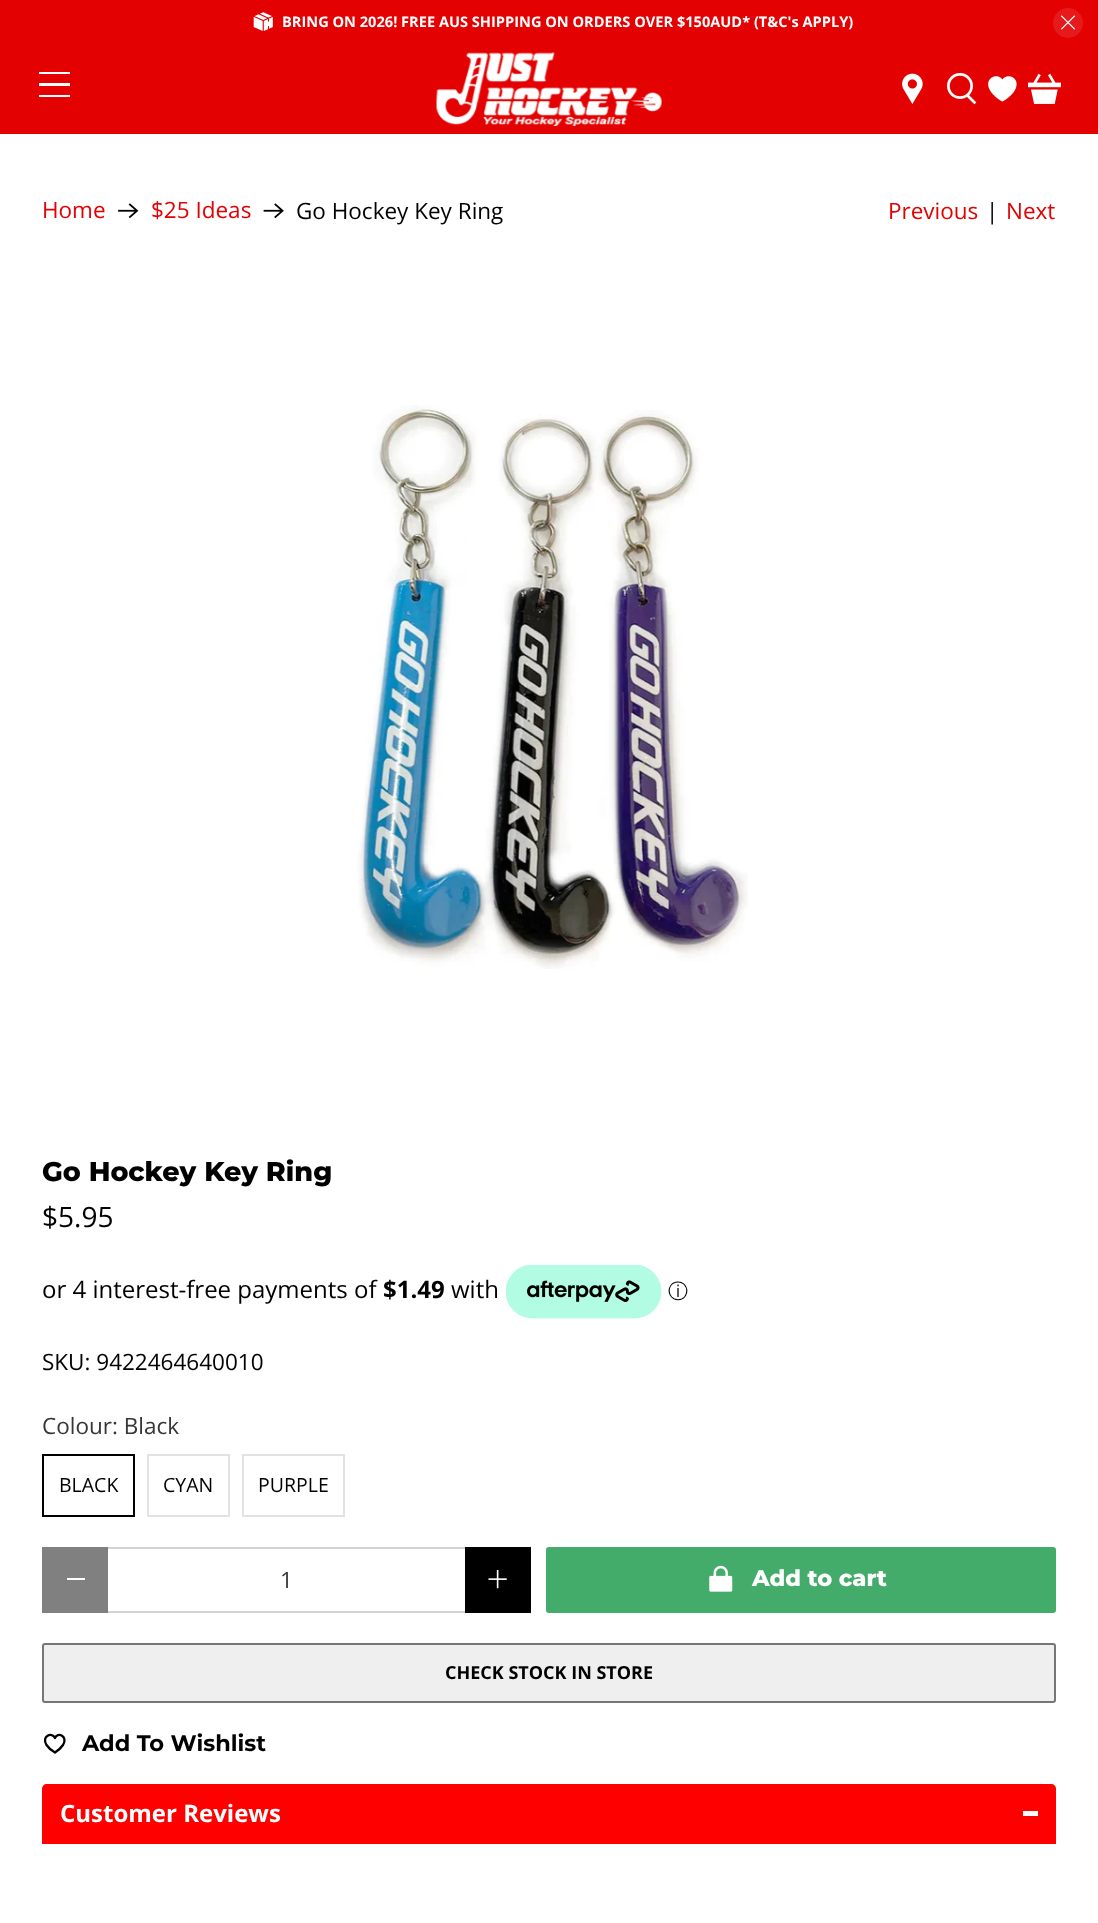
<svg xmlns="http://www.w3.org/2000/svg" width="1098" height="1923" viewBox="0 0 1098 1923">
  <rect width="100%" height="100%" fill="rgb(255,255,255)"/>
  <rect x="0" y="0" width="1098" height="134" fill="rgb(227,1,2)"/>
  <rect x="39" y="72" width="31" height="2" fill="rgb(255,255,255)"/>
  <rect x="39" y="83" width="31" height="3" fill="rgb(255,255,255)"/>
  <rect x="39" y="95" width="31" height="2" fill="rgb(255,255,255)"/>
  <image x="436" y="52" width="226" height="74" href="pic1.png"/>
  <image x="902" y="73" width="21" height="31" href="pic2.png"/>
  <image x="947" y="72" width="30" height="33" href="pic3.png"/>
  <image x="988" y="76" width="29" height="26" href="pic4.png"/>
  <image x="1028" y="73" width="33" height="31" href="pic5.png"/>
  <image x="253" y="12" width="20" height="19" href="pic6.png"/>
  <text x="282" y="27" font-family="Open Sans" font-size="14.6" font-weight="bold" fill="rgb(255,255,255)">BRING ON 2026! FREE AUS SHIPPING ON ORDERS OVER $150AUD* (T&amp;C's APPLY)</text>
  <circle cx="1068" cy="23" r="15" fill="rgb(230,26,27)"/>
  <image x="1061" y="15" width="15" height="15" href="pic7.png"/>
  <text x="42" y="218" font-family="Open Sans" font-size="22.5" fill="rgb(227,1,2)">Home</text>
  <image x="118" y="203" width="21" height="16" href="pic8.png"/>
  <text x="151" y="218" font-family="Open Sans" font-size="22.5" fill="rgb(227,1,2)">$25 Ideas</text>
  <image x="263" y="203" width="21" height="16" href="pic9.png"/>
  <text x="296" y="219" font-family="Open Sans" font-size="22.5" fill="rgb(0,0,0)">Go Hockey Key Ring</text>
  <text x="888" y="219" font-family="Open Sans" font-size="22.5" fill="rgb(227,1,2)">Previous</text>
  <text x="986" y="219" font-family="Open Sans" font-size="22.5" fill="rgb(0,0,0)">|</text>
  <text x="1006" y="219" font-family="Open Sans" font-size="22.5" fill="rgb(227,1,2)">Next</text>
  <image x="356" y="405" width="392" height="564" href="pic10.png"/>
  <text x="42" y="1181" font-family="Montserrat" font-size="27" font-weight="800" fill="rgb(0,0,0)">Go Hockey Key Ring</text>
  <text x="42" y="1227" font-family="Open Sans" font-size="28" fill="rgb(0,0,0)">$5.95</text>
  <text x="42" y="1298" font-family="Open Sans" font-size="24" fill="rgb(0,0,0)">or 4 interest-free payments of</text>
  <text x="383" y="1298" font-family="Open Sans" font-size="24" font-weight="bold" fill="rgb(0,0,0)">$1.49</text>
  <text x="451" y="1298" font-family="Open Sans" font-size="24" fill="rgb(0,0,0)">with</text>
  <image x="506" y="1265" width="156" height="54" href="pic11.png"/>
  <text x="668" y="1298" font-family="WenQuanYi Zen Hei" font-size="20" font-weight="500" fill="rgb(0,0,0)">ⓘ</text>
  <text x="42" y="1370" font-family="Open Sans" font-size="22.5" fill="rgb(0,0,0)">SKU: 9422464640010</text>
  <text x="42" y="1434" font-family="Open Sans" font-size="22.5" fill="rgb(54,54,54)">Colour: Black</text>
  <rect x="43" y="1455" width="91" height="61" fill="none" stroke="rgb(0,0,0)" stroke-width="2"/>
  <text x="59" y="1492" font-family="Open Sans" font-size="19.5" fill="rgb(0,0,0)">BLACK</text>
  <rect x="148" y="1455" width="81" height="61" fill="none" stroke="rgb(226,226,226)" stroke-width="2"/>
  <text x="163" y="1492" font-family="Open Sans" font-size="19.5" fill="rgb(0,0,0)">CYAN</text>
  <rect x="243" y="1455" width="101" height="61" fill="none" stroke="rgb(226,226,226)" stroke-width="2"/>
  <text x="258" y="1492" font-family="Open Sans" font-size="19.5" fill="rgb(0,0,0)">PURPLE</text>
  <rect x="42" y="1547" width="66" height="66" fill="rgb(128,128,128)"/>
  <rect x="67" y="1578" width="18" height="2" fill="rgb(255,255,255)"/>
  <rect x="108" y="1547" width="357" height="2" fill="rgb(211,211,211)"/>
  <rect x="108" y="1611" width="357" height="2" fill="rgb(211,211,211)"/>
  <text x="280" y="1588" font-family="Open Sans" font-size="22.5" fill="rgb(54,54,54)">1</text>
  <rect x="465" y="1547" width="66" height="66" fill="rgb(0,0,0)"/>
  <image x="488" y="1570" width="19" height="19" href="pic12.png"/>
  <rect x="546" y="1547" width="510" height="66" rx="3" fill="rgb(67,172,106)"/>
  <image x="709" y="1565" width="24" height="27" href="pic13.png"/>
  <text x="752" y="1586" font-family="Montserrat" font-size="22.5" font-weight="800" fill="rgb(255,255,255)">Add to cart</text>
  <rect x="43" y="1644" width="1012" height="58" rx="2" fill="rgb(239,239,239)" stroke="rgb(118,118,118)" stroke-width="2"/>
  <text x="445" y="1679" font-family="Open Sans" font-size="18" font-weight="bold" fill="rgb(0,0,0)">CHECK STOCK IN STORE</text>
  <path d="M55 1752.5C51.5 1750.5 48.5 1748 46.5 1745C41 1736 52 1731.5 55 1738C57.5 1731.5 68.5 1736 63 1745C61 1748 58 1750.5 55 1752.5Z" fill="none" stroke="rgb(0,0,0)" stroke-width="2.3" stroke-linecap="round" stroke-linejoin="round"/>
  <text x="82" y="1751" font-family="Montserrat" font-size="22.5" font-weight="bold" fill="rgb(0,0,0)">Add To Wishlist</text>
  <path d="M47 1784H1051C1054 1784 1056 1786 1056 1789V1844H42V1789C42 1786 44 1784 47 1784Z" fill="rgb(255,0,0)"/>
  <text x="60" y="1822" font-family="Open Sans" font-size="24" font-weight="bold" fill="rgb(255,255,255)">Customer Reviews</text>
  <rect x="1023" y="1811" width="15" height="5" fill="rgb(255,255,255)"/>
</svg>
